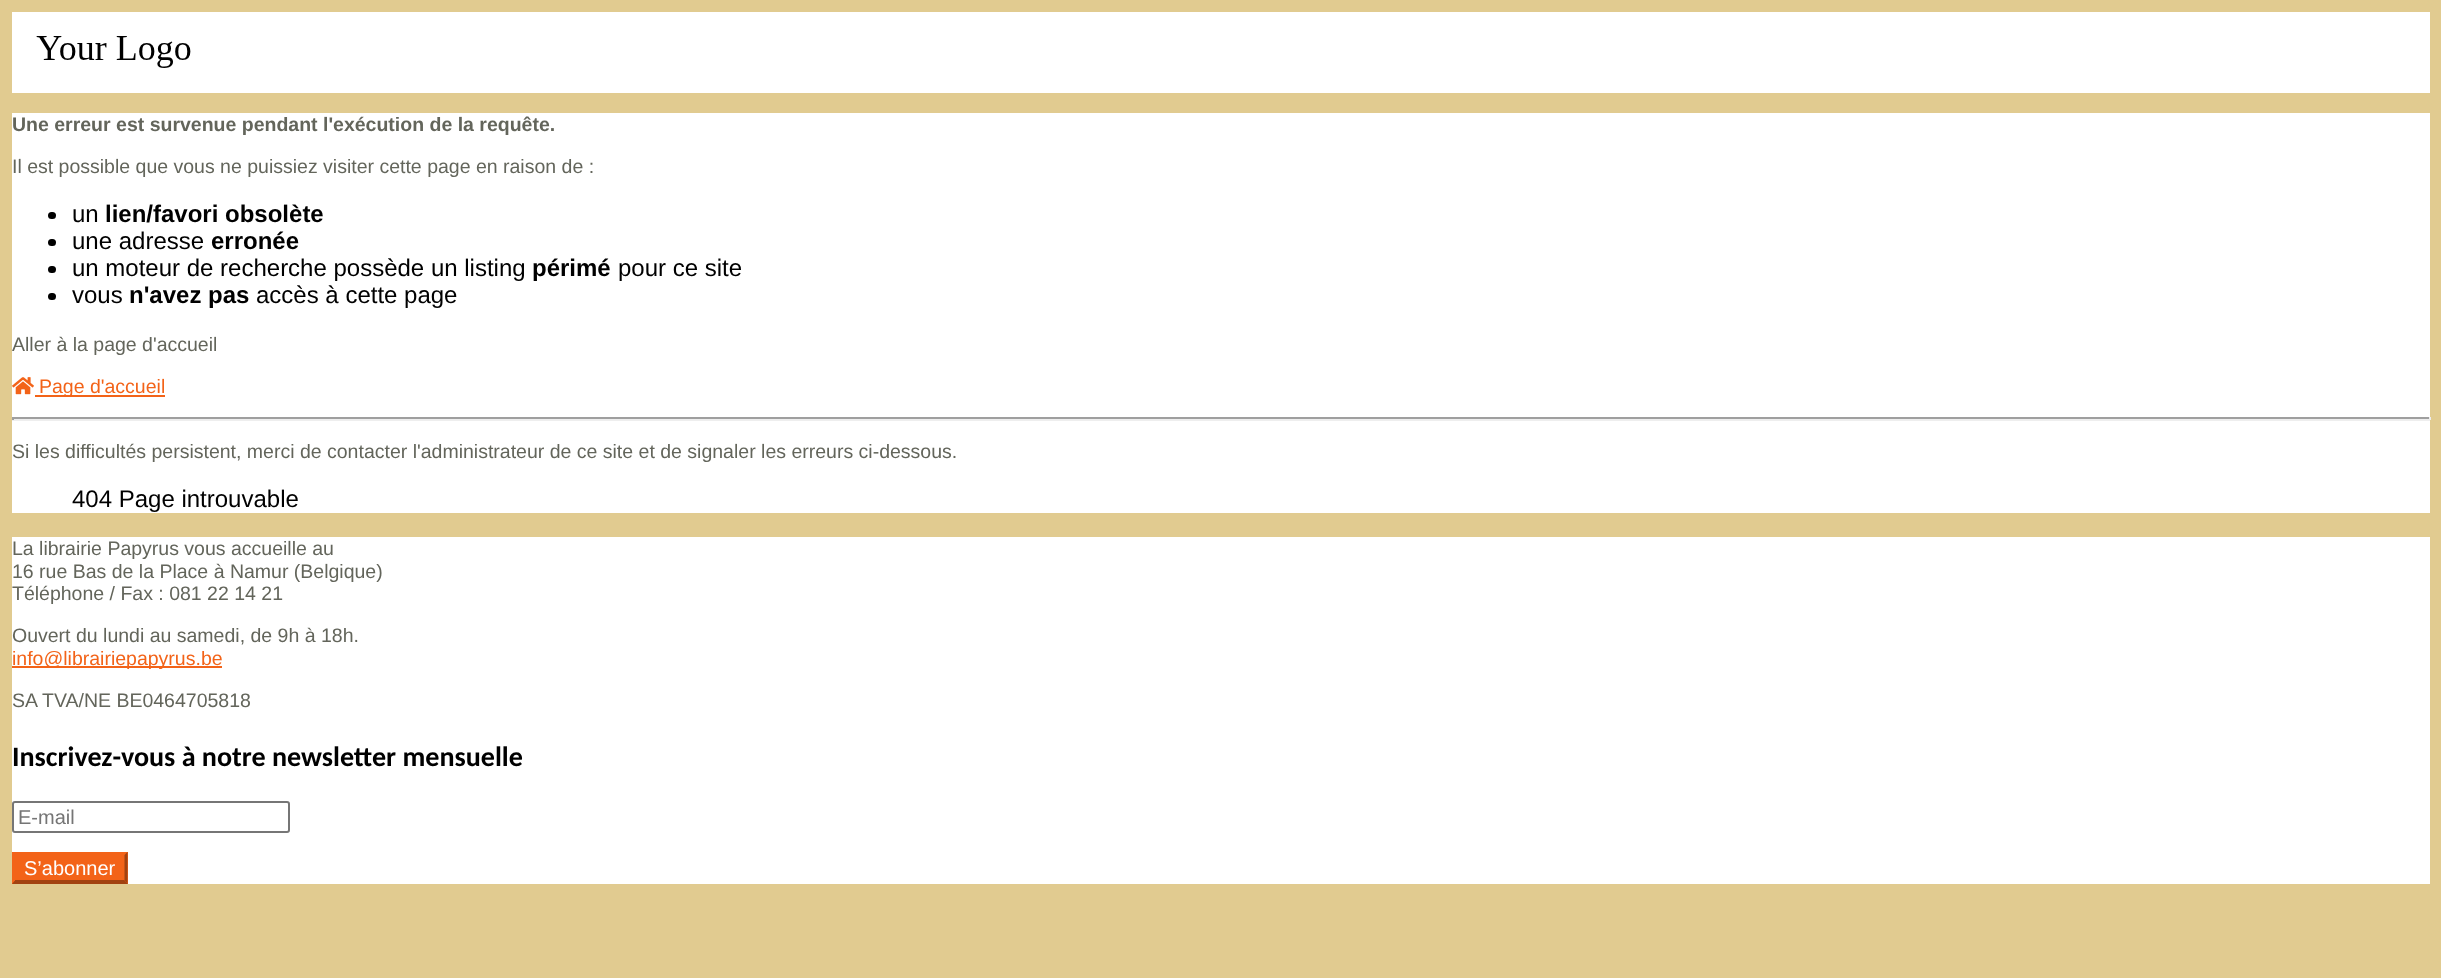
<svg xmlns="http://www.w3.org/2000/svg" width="2441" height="978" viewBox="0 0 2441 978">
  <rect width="100%" height="100%" fill="rgb(225,203,144)"/>
  <rect x="12" y="12" width="2418" height="81" fill="rgb(255,255,255)"/>
  <image x="36" y="36" width="155" height="32" href="pic1.png"/>
  <rect x="12" y="113" width="2418" height="400" fill="rgb(255,255,255)"/>
  <text x="12" y="131" font-family="Liberation Sans" font-size="19.5" font-weight="bold" fill="rgb(99,101,91)">Une erreur est survenue pendant l'exécution de la requête.</text>
  <text x="12" y="173" font-family="Liberation Sans" font-size="19.5" fill="rgb(99,101,91)">Il est possible que vous ne puissiez visiter cette page en raison de :</text>
  <rect x="48" y="212" width="8" height="7" rx="3.5" fill="rgb(0,0,0)"/>
  <text x="72" y="222" font-family="Liberation Sans" font-size="24" fill="rgb(0,0,0)">un</text>
  <text x="105" y="222" font-family="Liberation Sans" font-size="24" font-weight="bold" fill="rgb(0,0,0)">lien/favori obsolète</text>
  <rect x="48" y="239" width="8" height="7" rx="3.5" fill="rgb(0,0,0)"/>
  <text x="72" y="249" font-family="Liberation Sans" font-size="24" fill="rgb(0,0,0)">une adresse</text>
  <text x="211" y="249" font-family="Liberation Sans" font-size="24" font-weight="bold" fill="rgb(0,0,0)">erronée</text>
  <rect x="48" y="266" width="8" height="7" rx="3.5" fill="rgb(0,0,0)"/>
  <text x="72" y="276" font-family="Liberation Sans" font-size="24" fill="rgb(0,0,0)">un moteur de recherche possède un listing</text>
  <text x="532" y="276" font-family="Liberation Sans" font-size="24" font-weight="bold" fill="rgb(0,0,0)">périmé</text>
  <text x="618" y="276" font-family="Liberation Sans" font-size="24" fill="rgb(0,0,0)">pour ce site</text>
  <rect x="48" y="293" width="8" height="7" rx="3.5" fill="rgb(0,0,0)"/>
  <text x="72" y="303" font-family="Liberation Sans" font-size="24" fill="rgb(0,0,0)">vous</text>
  <text x="129" y="303" font-family="Liberation Sans" font-size="24" font-weight="bold" fill="rgb(0,0,0)">n'avez pas</text>
  <text x="256" y="303" font-family="Liberation Sans" font-size="24" fill="rgb(0,0,0)">accès à cette page</text>
  <text x="12" y="351" font-family="Liberation Sans" font-size="19.5" fill="rgb(99,101,91)">Aller à la page d'accueil</text>
  <image x="12" y="377" width="22" height="18" href="pic2.png"/>
  <rect x="35" y="395" width="130" height="2" fill="rgb(243,99,24)"/>
  <text x="39" y="393" font-family="Liberation Sans" font-size="19.5" fill="rgb(243,99,24)">Page d'accueil</text>
  <rect x="12" y="417" width="2418" height="2" fill="rgb(159,159,159)"/>
  <rect x="2429" y="417" width="2" height="3" fill="rgb(238,238,238)"/>
  <rect x="12" y="419" width="2418" height="2" fill="rgb(238,238,238)"/>
  <rect x="12" y="417" width="2" height="3" fill="rgb(159,159,159)"/>
  <text x="12" y="458" font-family="Liberation Sans" font-size="19.5" fill="rgb(99,101,91)">Si les difficultés persistent, merci de contacter l'administrateur de ce site et de signaler les erreurs ci-dessous.</text>
  <text x="72" y="507" font-family="Liberation Sans" font-size="24" fill="rgb(0,0,0)">404 Page introuvable</text>
  <rect x="12" y="537" width="2418" height="347" fill="rgb(255,255,255)"/>
  <g font-family="Liberation Sans" font-size="19.5" fill="rgb(99,101,91)">
    <text>
      <tspan x="12" y="555">La librairie Papyrus vous accueille au</tspan>
      <tspan x="12" y="578">16 rue Bas de la Place à Namur (Belgique)</tspan>
      <tspan x="12" y="600">Téléphone / Fax : 081 22 14 21</tspan>
    </text>
    <text x="12" y="642">Ouvert du lundi au samedi, de 9h à 18h.</text>
  </g>
  <rect x="12" y="666" width="210" height="2" fill="rgb(243,99,24)"/>
  <text x="12" y="665" font-family="Liberation Sans" font-size="19.5" fill="rgb(243,99,24)">info@librairiepapyrus.be</text>
  <text x="12" y="707" font-family="Liberation Sans" font-size="19.5" fill="rgb(99,101,91)">SA TVA/NE BE0464705818</text>
  <text x="12" y="766" font-family="Carlito" font-size="28.1" font-weight="bold" fill="rgb(0,0,0)">Inscrivez-vous à notre newsletter mensuelle</text>
  <rect x="13" y="802" width="276" height="30" rx="2" fill="none" stroke="rgb(118,118,118)" stroke-width="2"/>
  <text x="18" y="824" font-family="Liberation Sans" font-size="20" fill="rgb(117,117,117)">E-mail</text>
  <rect x="12" y="852" width="116" height="32" fill="rgb(243,99,24)"/>
  <path d="M127.5 852V883.5L124.5 880.5V855Z" fill="rgb(162,66,16)"/>
  <path d="M128 884H12L15 880H124Z" fill="rgb(162,66,16)"/>
  <path d="M12 883.5V852L15 855V880.5Z" fill="rgb(243,99,24)"/>
  <text x="24" y="875" font-family="Liberation Sans" font-size="20" fill="rgb(255,255,255)">S’abonner</text>
</svg>
